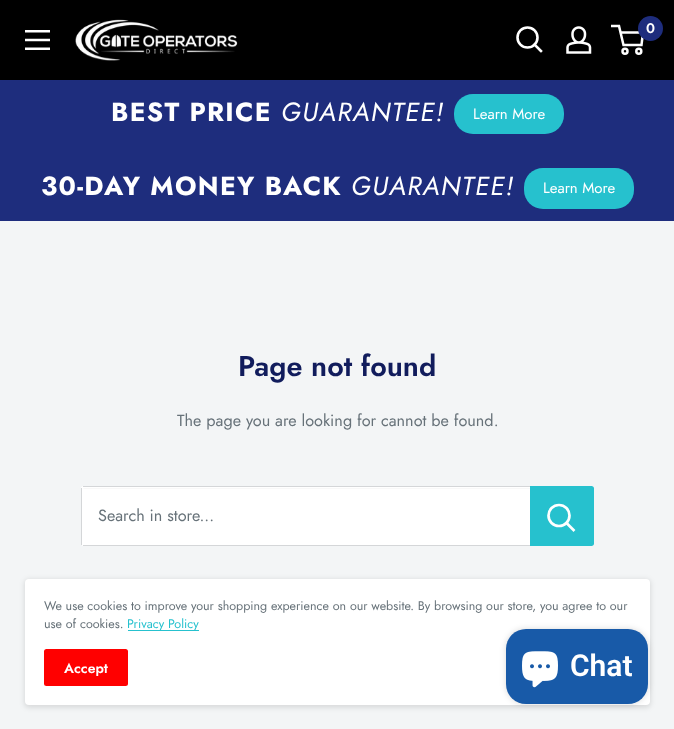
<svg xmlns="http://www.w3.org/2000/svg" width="674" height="729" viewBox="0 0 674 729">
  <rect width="100%" height="100%" fill="rgb(243,245,246)"/>
  <rect x="0" y="0" width="674" height="80" fill="rgb(0,0,0)"/>
  <image x="75" y="19" width="163" height="42" href="pic1.png"/>
  <path d="M541 51L534.5 44.5" fill="none" stroke="rgb(255,255,255)" stroke-width="2.6" stroke-linecap="square"/>
  <circle cx="527.5" cy="37.5" r="10" fill="none" stroke="rgb(255,255,255)" stroke-width="2.6"/>
  <image x="566" y="26" width="26" height="28" href="pic2.png"/>
  <circle cx="625" cy="51.2" r="2.5" fill="none" stroke="rgb(255,255,255)" stroke-width="2.5"/>
  <circle cx="638.8" cy="51.2" r="2.5" fill="none" stroke="rgb(255,255,255)" stroke-width="2.5"/>
  <path d="M620.5 32.5H643L641.5 45H623.5L619 26H611" fill="none" stroke="rgb(255,255,255)" stroke-width="2.5"/>
  <circle cx="650.5" cy="28.5" r="12.5" fill="rgb(30,45,125)"/>
  <text x="646" y="33" font-family="Jost" font-size="14" font-weight="600" fill="rgb(255,255,255)">0</text>
  <image x="25" y="30" width="25" height="20" href="pic3.png"/>
  <rect x="0" y="80" width="674" height="141" fill="rgb(30,45,125)"/>
  <text x="111" y="121" font-family="Jost" font-size="26.25" font-weight="bold" letter-spacing="1.25" fill="rgb(255,255,255)">BEST PRICE</text>
  <text x="281" y="121" font-family="Jost" font-size="26.25" font-style="italic" letter-spacing="1.25" fill="rgb(255,255,255)">GUARANTEE!</text>
  <rect x="454" y="94" width="110" height="40" rx="19" fill="rgb(38,193,206)"/>
  <text x="473" y="119" font-family="Jost" font-size="15" fill="rgb(255,255,255)">Learn More</text>
  <text x="41" y="195" font-family="Jost" font-size="26.25" font-weight="bold" letter-spacing="1.25" fill="rgb(255,255,255)">30-DAY MONEY BACK</text>
  <text x="351" y="195" font-family="Jost" font-size="26.25" font-style="italic" letter-spacing="1.25" fill="rgb(255,255,255)">GUARANTEE!</text>
  <rect x="524" y="168" width="110" height="41" rx="19" fill="rgb(38,193,206)"/>
  <text x="543" y="193" font-family="Jost" font-size="15" fill="rgb(255,255,255)">Learn More</text>
  <text x="238" y="376" font-family="Jost" font-size="28.75" font-weight="600" fill="rgb(17,28,92)">Page not found</text>
  <text x="177" y="426" font-family="Jost" font-size="16.25" fill="rgb(103,114,121)">The page you are looking for cannot be found.</text>
  <path d="M83.5 486H530V546H83.5C82 546 81 545 81 543.5V488.5C81 487 82 486 83.5 486Z" fill="rgb(255,255,255)"/>
  <path d="M84 489H530V488H84L83 489Z" fill="rgb(248,248,248)"/>
  <rect x="83" y="486" width="447" height="1" fill="rgb(212,214,216)"/>
  <rect x="83" y="545" width="447" height="1" fill="rgb(212,214,216)"/>
  <rect x="81" y="488" width="1" height="57" fill="rgb(212,214,216)"/>
  <text x="98" y="521" font-family="Jost" font-size="16.25" fill="rgb(103,114,121)">Search in store...</text>
  <path d="M530 486H591.5C593 486 594 487 594 488.5V543.5C594 545 593 546 591.5 546H530Z" fill="rgb(38,193,206)"/>
  <path d="M573.5 530L566.5 523" fill="none" stroke="rgb(255,255,255)" stroke-width="2.7" stroke-linecap="square"/>
  <circle cx="559" cy="515.5" r="10.5" fill="none" stroke="rgb(255,255,255)" stroke-width="2.7"/>
  <rect x="24" y="579" width="627" height="129" rx="5" fill="rgba(0,0,0,0.1)" filter="blur(2.5px)"/>
  <rect x="25" y="579" width="625" height="126" rx="4" fill="rgb(255,255,255)"/>
  <g font-family="Jost" font-size="12.5" fill="rgb(103,114,121)">
    <text>
      <tspan x="44" y="610">We use cookies to improve your shopping experience on our website. By browsing our store, you agree to our</tspan>
      <tspan x="44" y="628">use of cookies.</tspan>
    </text>
  </g>
  <rect x="128" y="630" width="71" height="1" fill="rgb(38,193,206)"/>
  <text x="127" y="628" font-family="Jost" font-size="12.5" fill="rgb(38,193,206)">Privacy Policy</text>
  <rect x="44" y="649" width="84" height="37" rx="2.5" fill="rgb(255,0,0)"/>
  <text x="64" y="673" font-family="Jost" font-size="14" font-weight="600" fill="rgb(255,255,255)">Accept</text>
  <rect x="506" y="629" width="142" height="75" rx="20" fill="rgba(0,0,0,0.15)" filter="blur(3px)"/>
  <rect x="506" y="629" width="142" height="75" rx="20" fill="rgb(24,90,168)"/>
  <image x="522" y="651" width="36" height="37" href="pic4.png"/>
  <text x="570" y="676" font-family="Roboto" font-size="30" font-weight="600" fill="rgb(255,255,255)">Chat</text>
</svg>
